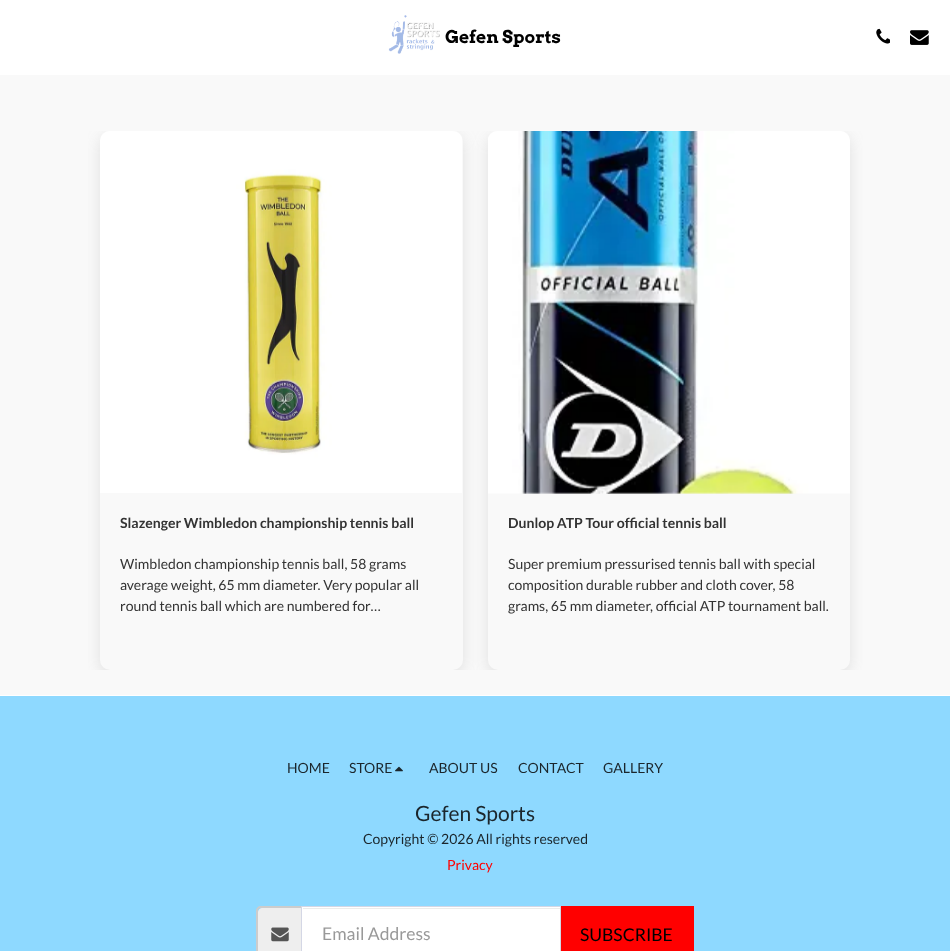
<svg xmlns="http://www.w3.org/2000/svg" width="950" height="951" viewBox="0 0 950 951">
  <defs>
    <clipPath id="clip1"><rect x="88" y="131" width="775" height="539"/></clipPath>
  </defs>
  <rect width="100%" height="100%" fill="rgb(249,249,249)"/>
  <rect x="0" y="0" width="950" height="75" fill="rgb(255,255,255)"/>
  <image x="388" y="15" width="52" height="39" href="pic1.png"/>
  <text x="445" y="43" font-family="Arvo" font-size="17.5" font-weight="bold" fill="rgb(0,0,0)">Gefen Sports</text>
  <image x="876" y="28" width="14" height="16" href="pic2.png"/>
  <image x="910" y="30" width="19" height="15" href="pic3.png"/>
  <rect x="0" y="696" width="950" height="255" fill="rgb(142,217,255)"/>
  <rect x="0" y="695" width="950" height="1" fill="rgb(255,255,255)"/>
  <g clip-path="url(#clip1)">
    <rect x="100" y="136" width="363" height="539" rx="10" fill="rgba(129,129,129,0.2)" filter="blur(7.5px)"/>
  </g>
  <rect x="100" y="131" width="363" height="539" rx="10" fill="rgb(249,249,249)"/>
  <image x="100" y="131" width="362" height="362" href="pic4.png"/>
  <text x="120" y="528" font-family="Lato" font-size="14" font-weight="bold" fill="rgb(51,51,51)">Slazenger Wimbledon championship tennis ball</text>
  <g font-family="Lato" font-size="14" fill="rgb(51,51,51)">
    <text>
      <tspan x="120" y="569">Wimbledon championship tennis ball, 58 grams</tspan>
      <tspan x="120" y="590">average weight, 65 mm diameter. Very popular all</tspan>
      <tspan x="120" y="611">round tennis ball which are numbered for…</tspan>
    </text>
  </g>
  <g clip-path="url(#clip1)">
    <rect x="488" y="136" width="362" height="539" rx="10" fill="rgba(129,129,129,0.2)" filter="blur(7.5px)"/>
  </g>
  <rect x="488" y="131" width="362" height="539" rx="10" fill="rgb(249,249,249)"/>
  <image x="488" y="131" width="362" height="363" href="pic5.png"/>
  <text x="508" y="528" font-family="Lato" font-size="14" font-weight="bold" fill="rgb(51,51,51)">Dunlop ATP Tour official tennis ball</text>
  <g font-family="Lato" font-size="14" fill="rgb(51,51,51)">
    <text>
      <tspan x="508" y="569">Super premium pressurised tennis ball with special</tspan>
      <tspan x="508" y="590">composition durable rubber and cloth cover, 58</tspan>
      <tspan x="508" y="611">grams, 65 mm diameter, official ATP tournament ball.</tspan>
    </text>
  </g>
  <g font-family="Lato" font-size="14" fill="rgb(27,38,44)">
    <text x="287" y="773">HOME</text>
    <text x="349" y="773">STORE</text>
  </g>
  <image x="395" y="766" width="8" height="6" href="pic6.png"/>
  <g font-family="Lato" font-size="14" fill="rgb(27,38,44)">
    <text x="429" y="773">ABOUT US</text>
    <text x="518" y="773">CONTACT</text>
    <text x="603" y="773">GALLERY</text>
  </g>
  <text x="415" y="821" font-family="Lato" font-size="21" fill="rgb(27,38,44)">Gefen Sports</text>
  <text x="363" y="844" font-family="Lato" font-size="14" fill="rgb(27,38,44)">Copyright © 2026 All rights reserved</text>
  <text x="447" y="870" font-family="Lato" font-size="14" fill="rgb(255,0,0)">Privacy</text>
  <path d="M262 908H301V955H262C260 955 258 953 258 951V912C258 910 260 908 262 908Z" fill="rgb(238,238,238)"/>
  <path d="M261 906H301V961H261C258 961 256 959 256 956V911C256 908 258 906 261 906ZM261 908H301V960H261C259 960 258 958 258 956V911C258 909 259 908 261 908Z" fill="rgb(204,204,204)" fill-rule="evenodd"/>
  <image x="271" y="927" width="18" height="15" href="pic7.png"/>
  <rect x="302" y="907" width="258" height="44" fill="rgb(255,255,255)"/>
  <rect x="303" y="908" width="257" height="1" fill="rgb(236,236,236)"/>
  <rect x="301.5" y="906.5" width="259" height="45" fill="none" stroke="rgb(212,215,229)"/>
  <text x="322" y="940" font-family="Lato" font-size="17.5" fill="rgb(153,153,153)">Email Address</text>
  <rect x="561" y="906" width="133" height="45" fill="rgb(255,0,0)"/>
  <text x="580" y="941" font-family="Lato" font-size="17.5" fill="rgb(0,0,0)">SUBSCRIBE</text>
</svg>
